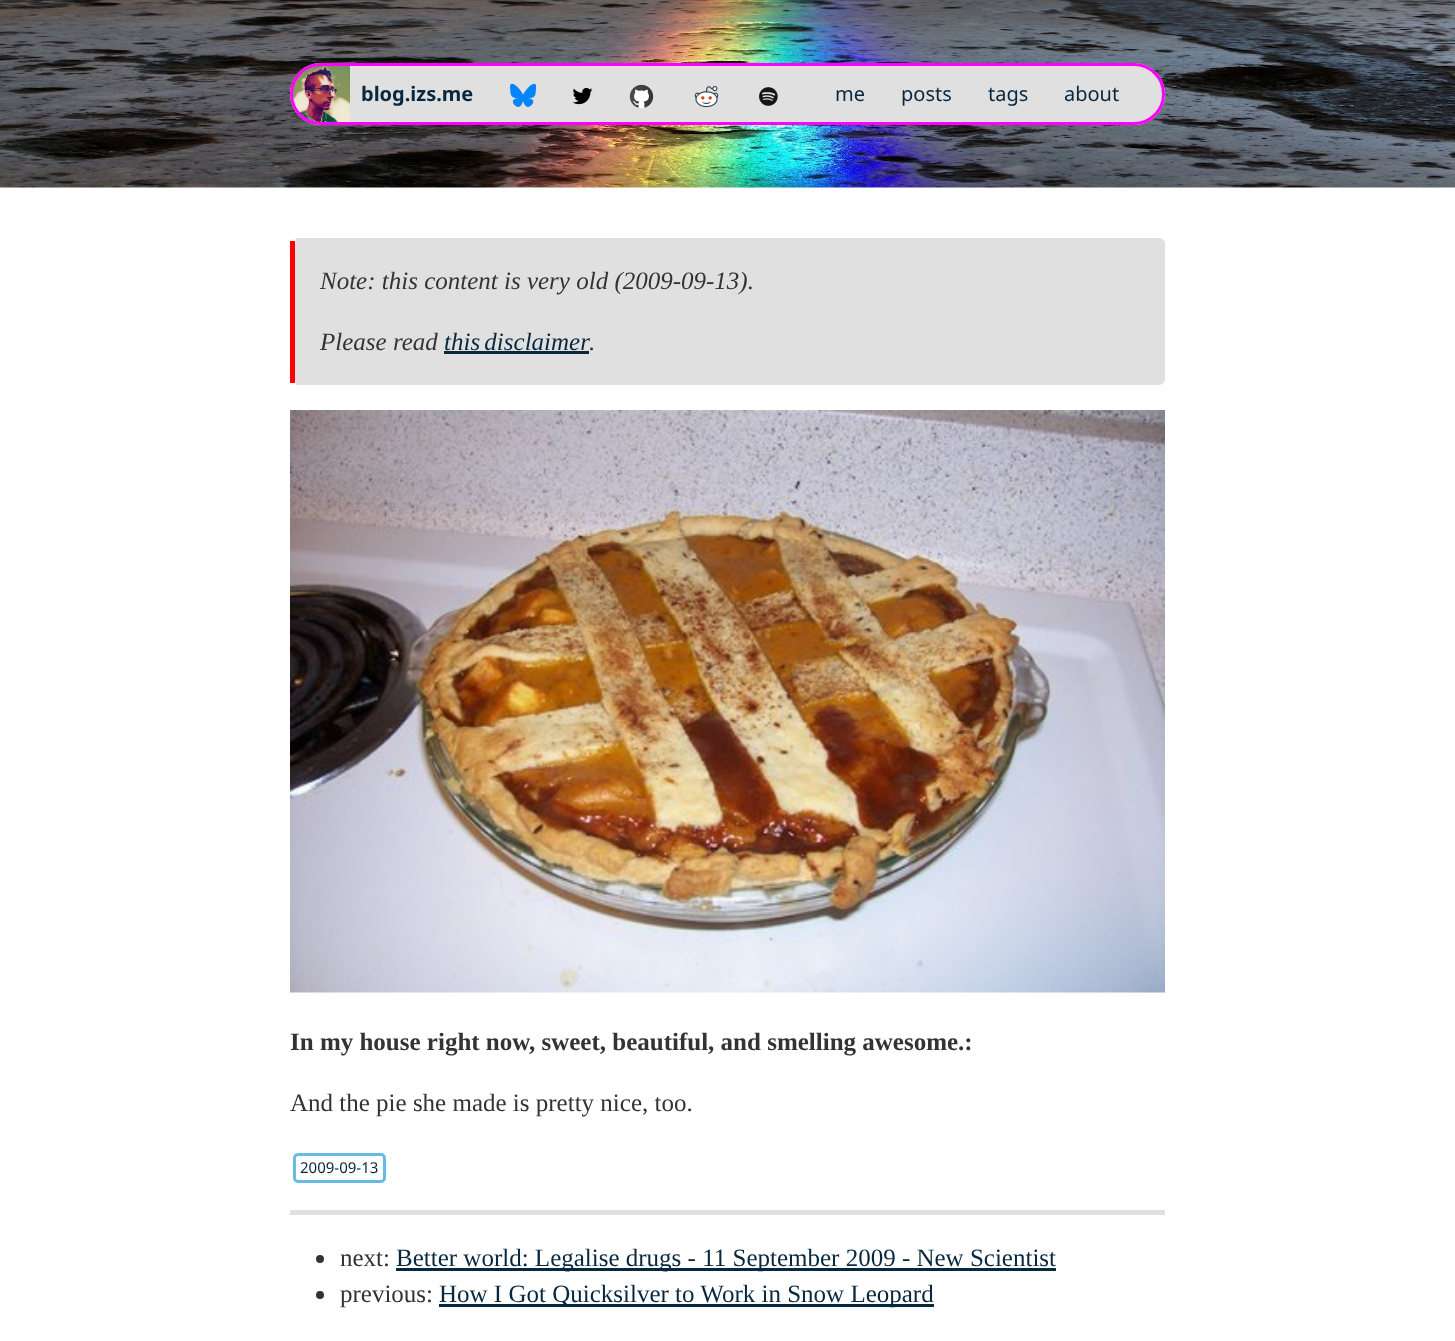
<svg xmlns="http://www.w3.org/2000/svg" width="1455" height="1341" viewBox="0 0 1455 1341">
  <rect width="100%" height="100%" fill="rgb(255,255,255)"/>
  <image x="0" y="0" width="1455" height="188" href="pic1.png"/>
  <rect x="290" y="63" width="875" height="62" rx="31" fill="rgb(224,224,224)"/>
  <image x="292" y="65" width="58" height="58" href="pic2.png"/>
  <rect x="291.5" y="64.5" width="872" height="59" rx="29.5" fill="none" stroke="rgb(255,0,255)" stroke-width="3"/>
  <text x="361" y="101" font-family="Noto Sans" font-size="20" font-weight="bold" fill="rgb(8,40,64)">blog.izs.me</text>
  <image x="510" y="83" width="26" height="24" href="pic3.png"/>
  <image x="573" y="87" width="20" height="18" href="pic4.png"/>
  <image x="629" y="84" width="25" height="24" href="pic5.png"/>
  <image x="694" y="86" width="25" height="22" href="pic6.png"/>
  <image x="759" y="87" width="19" height="19" href="pic7.png"/>
  <g font-family="Noto Sans" font-size="20" fill="rgb(8,40,64)">
    <text x="835" y="101">me</text>
    <text x="901" y="101">posts</text>
    <text x="988" y="101">tags</text>
    <text x="1064" y="101">about</text>
  </g>
  <path d="M296 238H1159C1162 238 1165 240 1165 244V379C1165 382 1162 385 1159 385H296C296 385 295 382 295 379V244C295 240 296 238 296 238Z" fill="rgb(224,224,224)"/>
  <rect x="290" y="241" width="5" height="142" fill="rgb(255,0,0)"/>
  <g font-family="Liberation Serif" font-size="25" font-style="italic" fill="rgb(51,51,51)">
    <text x="320" y="289">Note: this content is very old (2009-09-13).</text>
    <text x="320" y="350">Please read</text>
  </g>
  <text x="444" y="350" word-spacing="-2" font-family="Liberation Serif" font-size="25" font-style="italic" fill="rgb(8,40,64)">this disclaimer</text>
  <rect x="444" y="351" width="145" height="3" fill="rgb(8,40,64)"/>
  <text x="589" y="350" font-family="Liberation Serif" font-size="25" font-style="italic" fill="rgb(51,51,51)">.</text>
  <image x="290" y="410" width="875" height="583" href="pic8.png"/>
  <text x="290" y="1050" font-family="Liberation Serif" font-size="25" font-weight="bold" fill="rgb(51,51,51)">In my house right now, sweet, beautiful, and smelling awesome.:</text>
  <text x="290" y="1111" font-family="Liberation Serif" font-size="25" fill="rgb(51,51,51)">And the pie she made is pretty nice, too.</text>
  <rect x="294.5" y="1154.5" width="90" height="27" rx="3.5" fill="none" stroke="rgb(104,187,227)" stroke-width="3"/>
  <text x="300" y="1173" font-family="Noto Sans" font-size="15" fill="rgb(8,40,64)">2009-09-13</text>
  <rect x="290" y="1210" width="875" height="5" fill="rgb(224,224,224)"/>
  <circle cx="320" cy="1259" r="4" fill="rgb(51,51,51)"/>
  <text x="340" y="1266" font-family="Liberation Serif" font-size="25" fill="rgb(51,51,51)">next:</text>
  <rect x="396" y="1268" width="660" height="3" fill="rgb(8,40,64)"/>
  <text x="396" y="1266" font-family="Liberation Serif" font-size="25" fill="rgb(8,40,64)">Better world: Legalise drugs - 11 September 2009 - New Scientist</text>
  <circle cx="320" cy="1295" r="4" fill="rgb(51,51,51)"/>
  <text x="340" y="1302" font-family="Liberation Serif" font-size="25" fill="rgb(51,51,51)">previous:</text>
  <rect x="439" y="1304" width="495" height="3" fill="rgb(8,40,64)"/>
  <text x="439" y="1302" font-family="Liberation Serif" font-size="25" fill="rgb(8,40,64)">How I Got Quicksilver to Work in Snow Leopard</text>
</svg>
